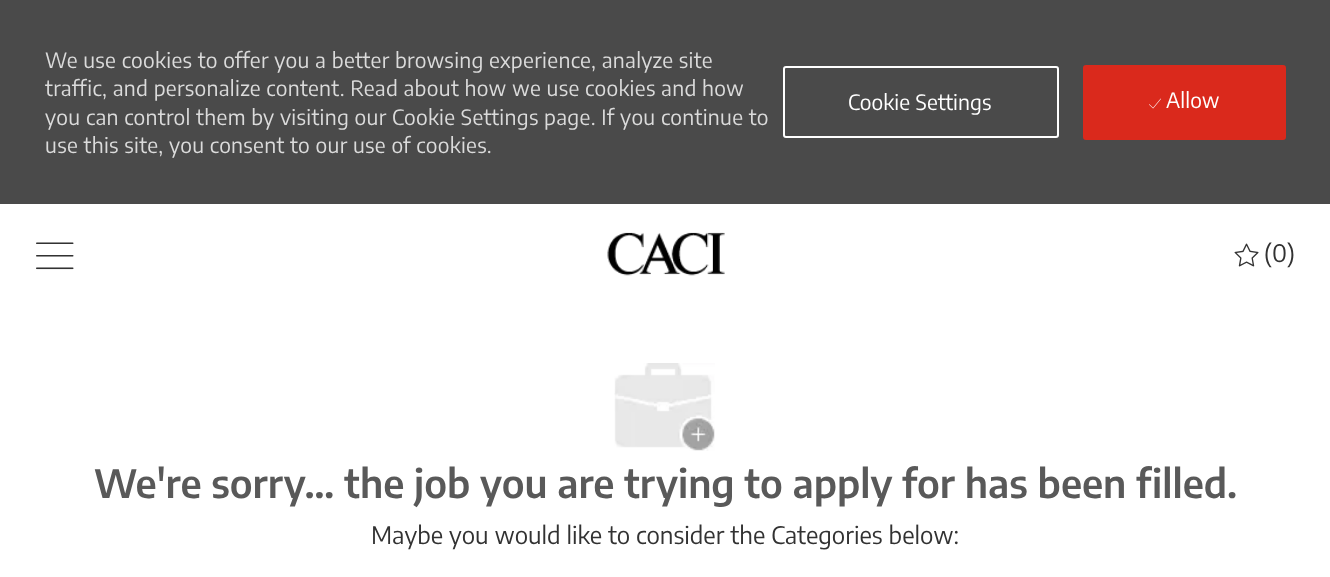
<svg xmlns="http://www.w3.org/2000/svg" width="1330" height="577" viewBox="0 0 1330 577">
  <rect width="100%" height="100%" fill="rgb(255,255,255)"/>
  <rect x="0" y="0" width="1330" height="204" fill="rgb(74,74,74)"/>
  <g font-family="Encode Sans" font-size="21" letter-spacing="0.3" fill="rgb(219,219,219)">
    <text>
      <tspan x="45" y="68">We use cookies to offer you a better browsing experience, analyze site</tspan>
      <tspan x="45" y="96">traffic, and personalize content. Read about how we use cookies and how</tspan>
      <tspan x="45" y="125">you can control them by visiting our Cookie Settings page. If you continue to</tspan>
      <tspan x="45" y="153">use this site, you consent to our use of cookies.</tspan>
    </text>
  </g>
  <rect x="784" y="67" width="274" height="70" rx="2" fill="none" stroke="rgb(255,255,255)" stroke-width="2"/>
  <text x="848" y="110" font-family="Encode Sans" font-size="21" letter-spacing="0.1" fill="rgb(255,255,255)">Cookie Settings</text>
  <rect x="1084" y="66" width="201" height="73" rx="2" fill="rgb(218,41,28)" stroke="rgb(218,41,28)" stroke-width="2"/>
  <image x="1149" y="98" width="12" height="11" href="pic1.png"/>
  <text x="1166" y="108" font-family="Encode Sans" font-size="21" letter-spacing="0.1" fill="rgb(255,255,255)">Allow</text>
  <image x="36" y="242" width="38" height="28" href="pic2.png"/>
  <image x="607" y="232" width="118" height="44" href="pic3.png"/>
  <image x="1234" y="243" width="25" height="24" href="pic4.png"/>
  <text x="1264" y="262" font-family="Encode Sans" font-size="24" fill="rgb(50,50,50)">(0)</text>
  <image x="614" y="363" width="101" height="88" href="pic5.png"/>
  <text x="94" y="498" font-family="Encode Sans" font-size="39" font-weight="600" fill="rgb(89,89,89)">We're sorry… the job you are trying to apply for has been filled.</text>
  <text x="371" y="544" font-family="Encode Sans" font-size="24" fill="rgb(50,50,50)">Maybe you would like to consider the Categories below:</text>
</svg>
